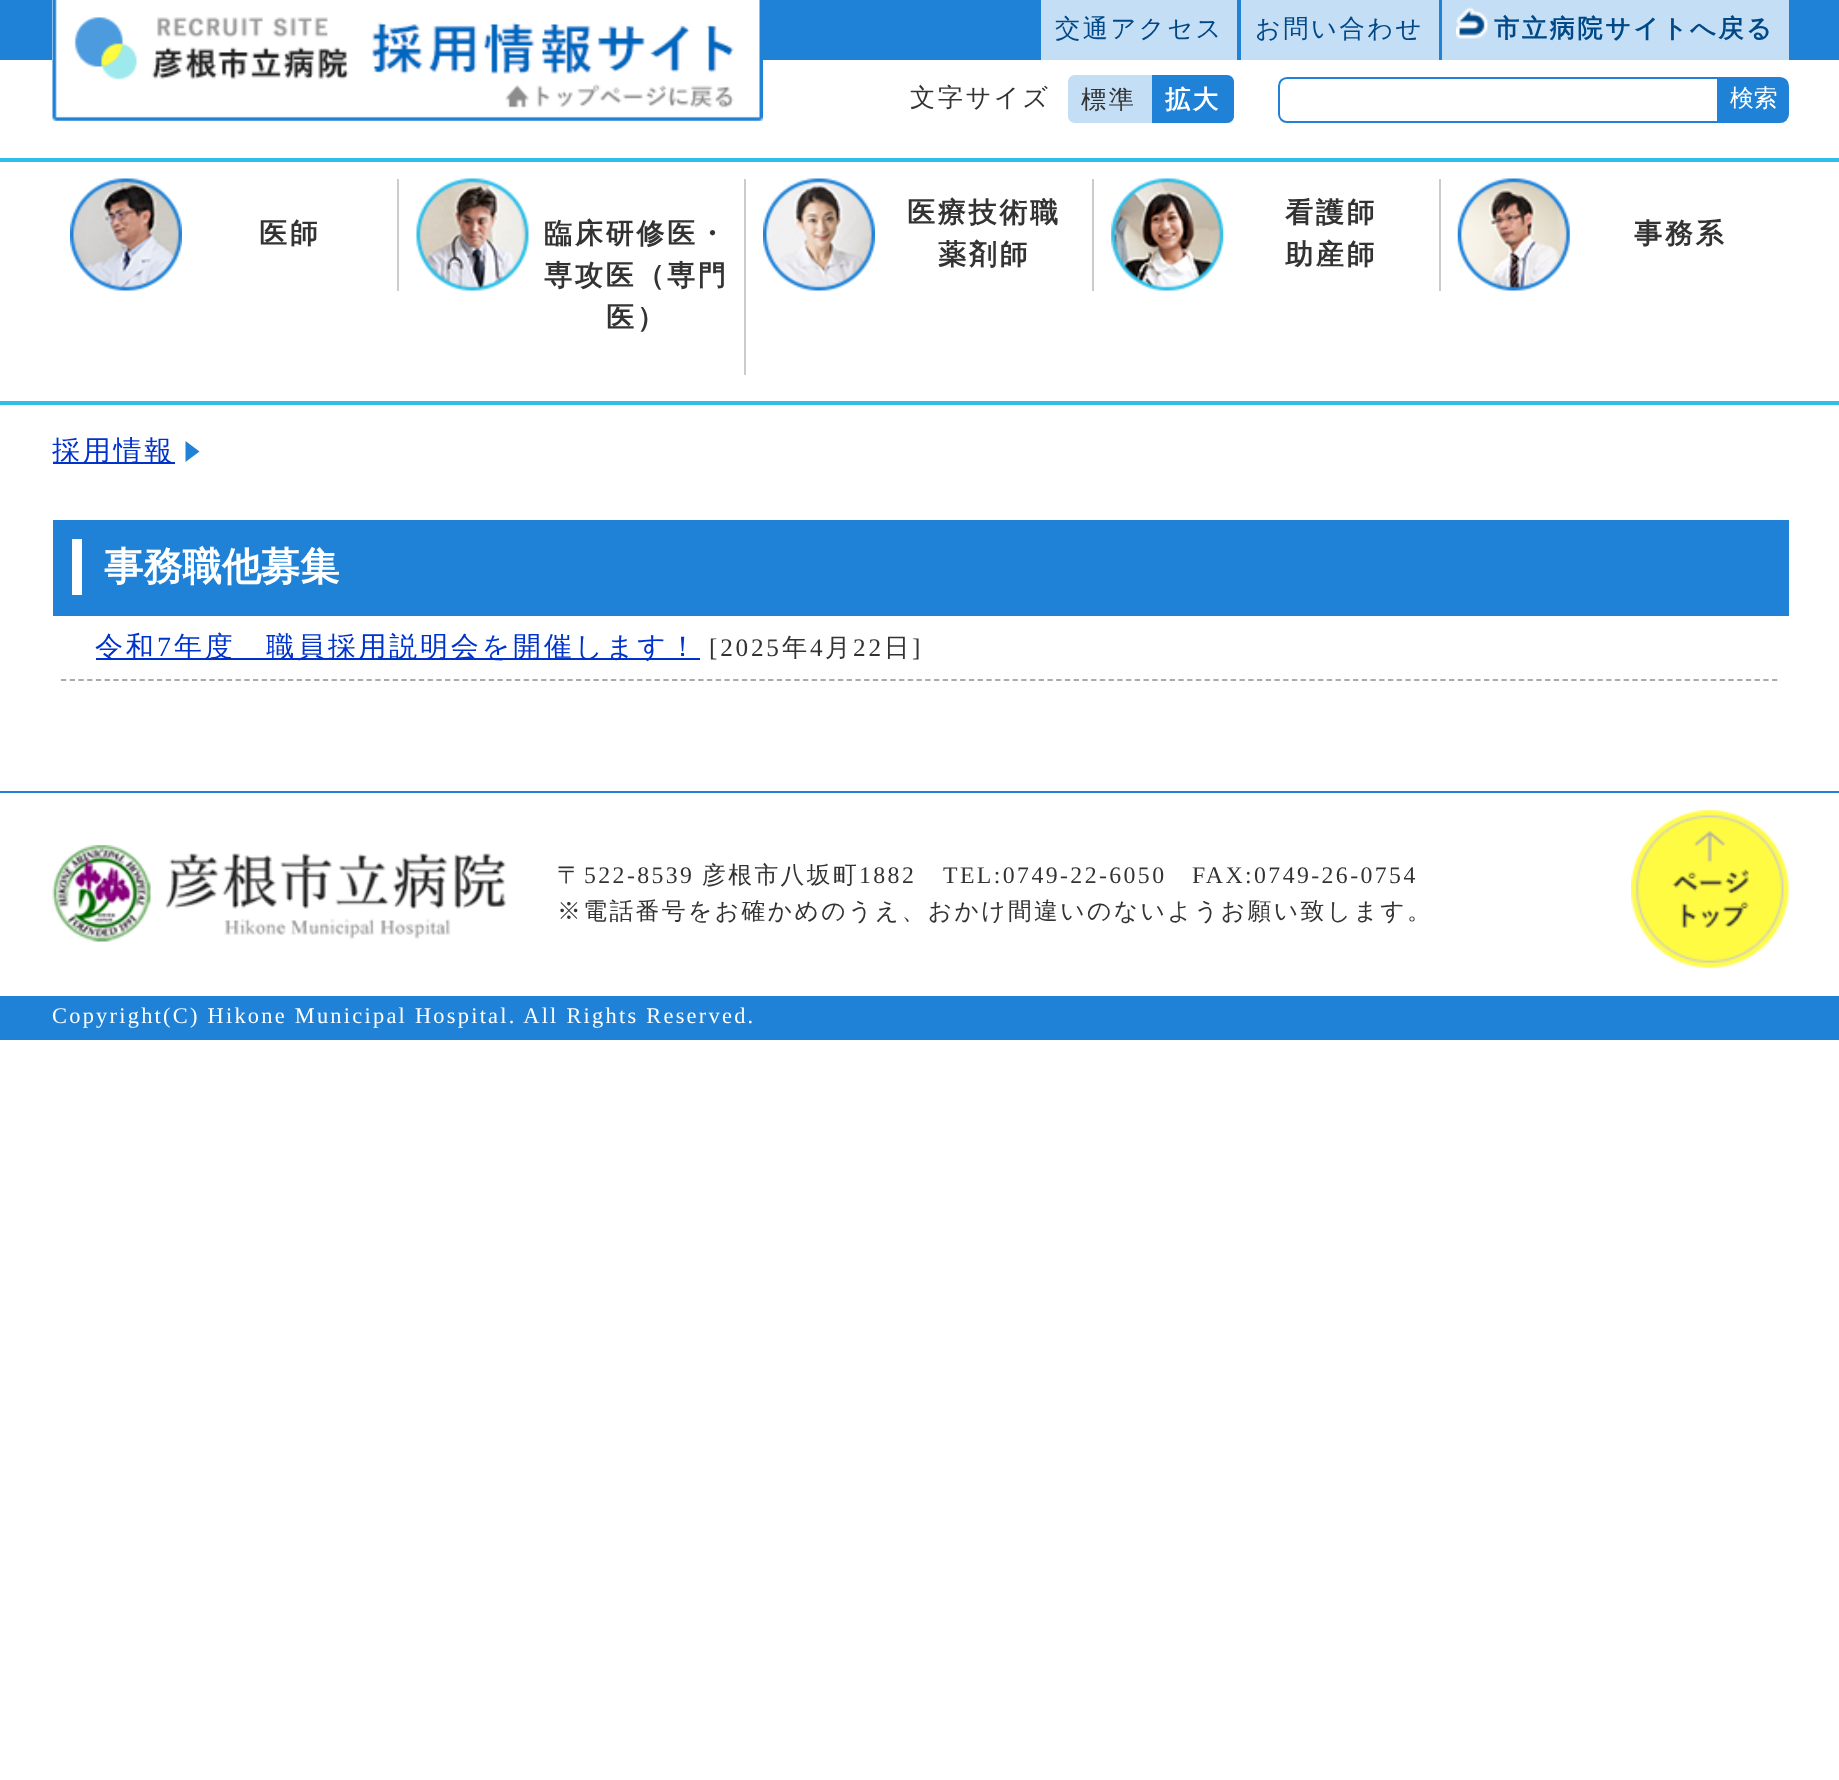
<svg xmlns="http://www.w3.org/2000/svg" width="1839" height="1780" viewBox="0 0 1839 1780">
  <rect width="100%" height="100%" fill="rgb(255,255,255)"/>
  <rect x="0" y="0" width="1839" height="60" fill="rgb(32,130,215)"/>
  <rect x="52" y="0" width="1" height="60" fill="rgb(255,255,255)"/>
  <image x="52" y="0" width="711" height="121" href="pic1.png"/>
  <rect x="1041" y="0" width="196" height="60" fill="rgb(196,223,245)"/>
  <text x="1055" y="37" font-family="WenQuanYi Zen Hei" font-size="25.25" font-weight="500" letter-spacing="2.5" fill="rgb(0,72,135)">交通アクセス</text>
  <rect x="1241" y="0" width="198" height="60" fill="rgb(196,223,245)"/>
  <text x="1255" y="37" font-family="WenQuanYi Zen Hei" font-size="25.25" font-weight="500" letter-spacing="2.5" fill="rgb(0,72,135)">お問い合わせ</text>
  <rect x="1442" y="0" width="347" height="60" fill="rgb(196,223,245)"/>
  <image x="1456" y="7" width="32" height="32" href="pic2.png"/>
  <text x="1494" y="37" font-family="WenQuanYi Zen Hei" font-size="25.25" font-weight="bold" letter-spacing="2.5" fill="rgb(0,72,135)">市立病院サイトへ戻る</text>
  <text x="910" y="106" font-family="WenQuanYi Zen Hei" font-size="25.25" font-weight="500" letter-spacing="2.5" fill="rgb(51,51,51)">文字サイズ</text>
  <path d="M1075 75H1152V123H1075C1071 123 1068 120 1068 116V82C1068 78 1071 75 1075 75Z" fill="rgb(196,223,245)"/>
  <text x="1081" y="108" font-family="WenQuanYi Zen Hei" font-size="25.25" font-weight="500" letter-spacing="2.5" fill="rgb(51,51,51)">標準</text>
  <path d="M1152 75H1227C1231 75 1234 78 1234 82V116C1234 120 1231 123 1227 123H1152Z" fill="rgb(32,130,215)"/>
  <text x="1165" y="108" font-family="WenQuanYi Zen Hei" font-size="25.25" font-weight="bold" letter-spacing="2.5" fill="rgb(255,255,255)">拡大</text>
  <path d="M1287 78H1718V122H1287C1282.5 122 1279 118.5 1279 114V86C1279 81.5 1282.5 78 1287 78Z" fill="none" stroke="rgb(32,130,215)" stroke-width="2"/>
  <path d="M1720 78H1780C1784.5 78 1788 81.5 1788 86V114C1788 118.5 1784.5 122 1780 122H1720Z" fill="rgb(32,130,215)" stroke="rgb(32,130,215)" stroke-width="2"/>
  <text x="1730" y="106" font-family="WenQuanYi Zen Hei" font-size="23.8" font-weight="500" fill="rgb(255,255,255)">検索</text>
  <rect x="0" y="158" width="1839" height="4" fill="rgb(47,190,231)"/>
  <rect x="0" y="401" width="1839" height="4" fill="rgb(47,190,231)"/>
  <rect x="397" y="179" width="2" height="112" fill="rgb(204,204,204)"/>
  <image x="70" y="178" width="112" height="113" href="pic3.png"/>
  <text x="259" y="243" font-family="WenQuanYi Zen Hei" font-size="28" font-weight="bold" letter-spacing="2.75" fill="rgb(51,51,51)">医師</text>
  <rect x="744" y="179" width="2" height="196" fill="rgb(204,204,204)"/>
  <image x="416" y="178" width="113" height="113" href="pic4.png"/>
  <g font-family="WenQuanYi Zen Hei" font-size="28" font-weight="bold" letter-spacing="2.75" fill="rgb(51,51,51)">
    <text>
      <tspan x="544" y="243">臨床研修医・</tspan>
      <tspan x="544" y="285">専攻医（専門</tspan>
    </text>
    <text x="606" y="327">医）</text>
  </g>
  <rect x="1092" y="179" width="2" height="112" fill="rgb(204,204,204)"/>
  <image x="763" y="178" width="112" height="113" href="pic5.png"/>
  <g font-family="WenQuanYi Zen Hei" font-size="28" font-weight="bold" letter-spacing="2.75" fill="rgb(51,51,51)">
    <text x="907" y="222">医療技術職</text>
    <text x="938" y="264">薬剤師</text>
  </g>
  <rect x="1439" y="179" width="2" height="112" fill="rgb(204,204,204)"/>
  <image x="1111" y="178" width="113" height="113" href="pic6.png"/>
  <g font-family="WenQuanYi Zen Hei" font-size="28" font-weight="bold" letter-spacing="2.75" fill="rgb(51,51,51)">
    <text>
      <tspan x="1285" y="222">看護師</tspan>
      <tspan x="1285" y="264">助産師</tspan>
    </text>
  </g>
  <image x="1457" y="178" width="113" height="113" href="pic7.png"/>
  <text x="1634" y="243" font-family="WenQuanYi Zen Hei" font-size="28" font-weight="bold" letter-spacing="2.75" fill="rgb(51,51,51)">事務系</text>
  <rect x="53" y="462" width="122" height="2" fill="rgb(0,51,204)"/>
  <text x="52" y="460" font-family="WenQuanYi Zen Hei" font-size="28" font-weight="500" letter-spacing="2.75" fill="rgb(0,51,204)">採用情報</text>
  <path d="M185.5 462V441L199.5 451.5Z" fill="rgb(32,130,215)"/>
  <rect x="53" y="520" width="1736" height="96" fill="rgb(32,130,215)"/>
  <rect x="72" y="539" width="10" height="56" fill="rgb(255,255,255)"/>
  <text x="104" y="580" font-family="WenQuanYi Zen Hei" font-size="39.25" font-weight="bold" fill="rgb(255,255,255)">事務職他募集</text>
  <path d="M61 680H1780" fill="none" stroke="rgb(170,170,170)" stroke-width="1.8" stroke-dasharray="5.25 3.48"/>
  <rect x="96" y="658" width="604" height="2" fill="rgb(0,51,204)"/>
  <text x="95" y="656" font-family="WenQuanYi Zen Hei" font-size="28" font-weight="500" letter-spacing="2.75" fill="rgb(0,51,204)">令和</text>
  <text x="157" y="656" font-family="Liberation Serif" font-size="28" letter-spacing="2.75" fill="rgb(0,51,204)">7</text>
  <text x="174" y="656" font-family="WenQuanYi Zen Hei" font-size="28" font-weight="500" letter-spacing="2.75" fill="rgb(0,51,204)">年度　職員採用説明会を開催します！</text>
  <text x="709" y="656" font-family="Liberation Serif" font-size="25.25" letter-spacing="2.75" fill="rgb(51,51,51)">[2025</text>
  <text x="782" y="656" font-family="WenQuanYi Zen Hei" font-size="25.25" font-weight="500" letter-spacing="2.75" fill="rgb(51,51,51)">年</text>
  <text x="810" y="656" font-family="Liberation Serif" font-size="25.25" letter-spacing="2.75" fill="rgb(51,51,51)">4</text>
  <text x="825" y="656" font-family="WenQuanYi Zen Hei" font-size="25.25" font-weight="500" letter-spacing="2.75" fill="rgb(51,51,51)">月</text>
  <text x="853" y="656" font-family="Liberation Serif" font-size="25.25" letter-spacing="2.75" fill="rgb(51,51,51)">22</text>
  <text x="884" y="656" font-family="WenQuanYi Zen Hei" font-size="25.25" font-weight="500" letter-spacing="2.75" fill="rgb(51,51,51)">日</text>
  <text x="912" y="656" font-family="Liberation Serif" font-size="25.25" letter-spacing="2.75" fill="rgb(51,51,51)">]</text>
  <rect x="0" y="791" width="1839" height="2" fill="rgb(32,130,215)"/>
  <image x="52" y="845" width="454" height="97" href="pic8.png"/>
  <text x="557" y="883" font-family="WenQuanYi Zen Hei" font-size="23.8" font-weight="500" letter-spacing="2.4" fill="rgb(51,51,51)">〒</text>
  <text x="584" y="883" font-family="Liberation Serif" font-size="23.8" letter-spacing="2.4" fill="rgb(51,51,51)">522-8539</text>
  <text x="702" y="883" font-family="WenQuanYi Zen Hei" font-size="23.8" font-weight="500" letter-spacing="2.4" fill="rgb(51,51,51)">彦根市八坂町</text>
  <g font-family="Liberation Serif" font-size="23.8" letter-spacing="2.4" fill="rgb(51,51,51)">
    <text x="859" y="883">1882</text>
    <text x="943" y="883">TEL:0749-22-6050</text>
    <text x="1192" y="883">FAX:0749-26-0754</text>
  </g>
  <text x="557" y="919" font-family="WenQuanYi Zen Hei" font-size="23.8" font-weight="500" letter-spacing="2.4" fill="rgb(51,51,51)">※電話番号をお確かめのうえ、おかけ間違いのないようお願い致します。</text>
  <image x="1631" y="810" width="158" height="158" href="pic9.png"/>
  <rect x="0" y="996" width="1839" height="44" fill="rgb(32,130,215)"/>
  <text x="52" y="1023" font-family="Liberation Serif" font-size="22.4" letter-spacing="2.25" fill="rgb(255,255,255)">Copyright(C) Hikone Municipal Hospital. All Rights Reserved.</text>
</svg>
